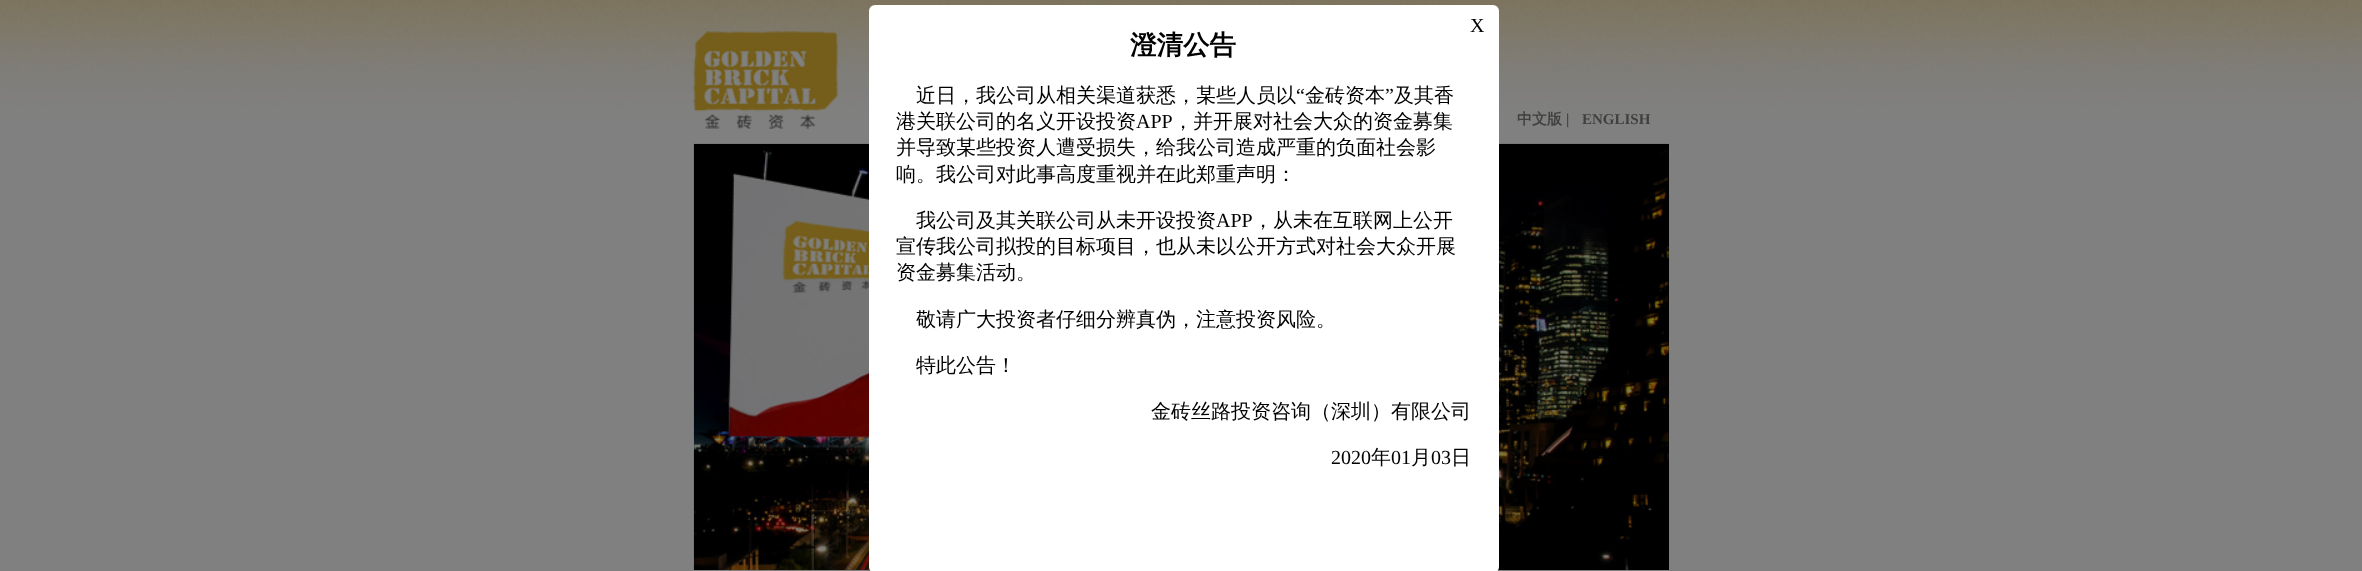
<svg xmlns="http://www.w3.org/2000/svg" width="2362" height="571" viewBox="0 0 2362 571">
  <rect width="100%" height="100%" fill="rgb(255,255,255)"/>
  <image x="0" y="0" width="2362" height="571" href="pic1.png"/>
  <rect x="1668" y="144" width="1" height="426" fill="rgb(0,0,0)"/>
  <image x="693" y="143" width="976" height="427" href="pic3.png"/>
  <rect x="870.5" y="6.5" width="627" height="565" rx="4.5" fill="rgb(255,255,255)" stroke="rgb(255,255,255)" stroke-width="3"/>
  <text x="1470" y="32" font-family="Liberation Serif" font-size="20" fill="rgb(0,0,0)">X</text>
  <text x="1130" y="54" font-family="WenQuanYi Zen Hei" font-size="26.5" font-weight="bold" fill="rgb(0,0,0)">澄清公告</text>
  <text x="916" y="102" font-family="WenQuanYi Zen Hei" font-size="20" font-weight="500" fill="rgb(0,0,0)">近日，我公司从相关渠道获悉，某些人员以</text>
  <text x="1296" y="102" font-family="Liberation Serif" font-size="20" fill="rgb(0,0,0)">“</text>
  <text x="1305" y="102" font-family="WenQuanYi Zen Hei" font-size="20" font-weight="500" fill="rgb(0,0,0)">金砖资本</text>
  <text x="1385" y="102" font-family="Liberation Serif" font-size="20" fill="rgb(0,0,0)">”</text>
  <g font-family="WenQuanYi Zen Hei" font-size="20" font-weight="500" fill="rgb(0,0,0)">
    <text x="1394" y="102">及其香</text>
    <text x="896" y="128">港关联公司的名义开设投资</text>
  </g>
  <text x="1136" y="128" font-family="Liberation Serif" font-size="20" fill="rgb(0,0,0)">APP</text>
  <g font-family="WenQuanYi Zen Hei" font-size="20" font-weight="500" fill="rgb(0,0,0)">
    <text x="1173" y="128">，并开展对社会大众的资金募集</text>
    <text>
      <tspan x="896" y="154">并导致某些投资人遭受损失，给我公司造成严重的负面社会影</tspan>
      <tspan x="896" y="181">响。我公司对此事高度重视并在此郑重声明：</tspan>
    </text>
    <text x="916" y="227">我公司及其关联公司从未开设投资</text>
  </g>
  <text x="1216" y="227" font-family="Liberation Serif" font-size="20" fill="rgb(0,0,0)">APP</text>
  <g font-family="WenQuanYi Zen Hei" font-size="20" font-weight="500" fill="rgb(0,0,0)">
    <text x="1253" y="227">，从未在互联网上公开</text>
    <text>
      <tspan x="896" y="253">宣传我公司拟投的目标项目，也从未以公开方式对社会大众开展</tspan>
      <tspan x="896" y="279">资金募集活动。</tspan>
    </text>
    <text x="916" y="326">敬请广大投资者仔细分辨真伪，注意投资风险。</text>
    <text x="916" y="372">特此公告！</text>
    <text x="1151" y="418">金砖丝路投资咨询（深圳）有限公司</text>
  </g>
  <text x="1331" y="464" font-family="Liberation Serif" font-size="20" fill="rgb(0,0,0)">2020</text>
  <text x="1371" y="464" font-family="WenQuanYi Zen Hei" font-size="20" font-weight="500" fill="rgb(0,0,0)">年</text>
  <text x="1391" y="464" font-family="Liberation Serif" font-size="20" fill="rgb(0,0,0)">01</text>
  <text x="1411" y="464" font-family="WenQuanYi Zen Hei" font-size="20" font-weight="500" fill="rgb(0,0,0)">月</text>
  <text x="1431" y="464" font-family="Liberation Serif" font-size="20" fill="rgb(0,0,0)">03</text>
  <text x="1451" y="464" font-family="WenQuanYi Zen Hei" font-size="20" font-weight="500" fill="rgb(0,0,0)">日</text>
  <image x="693" y="31" width="145" height="98" href="pic2.png"/>
  <text x="1517" y="124" font-family="WenQuanYi Zen Hei" font-size="15" font-weight="bold" fill="rgb(64,64,64)">中文版</text>
  <g font-family="Liberation Serif" font-size="15" font-weight="bold" fill="rgb(64,64,64)">
    <text x="1566" y="124">|</text>
    <text x="1582" y="124">ENGLISH</text>
  </g>
</svg>
